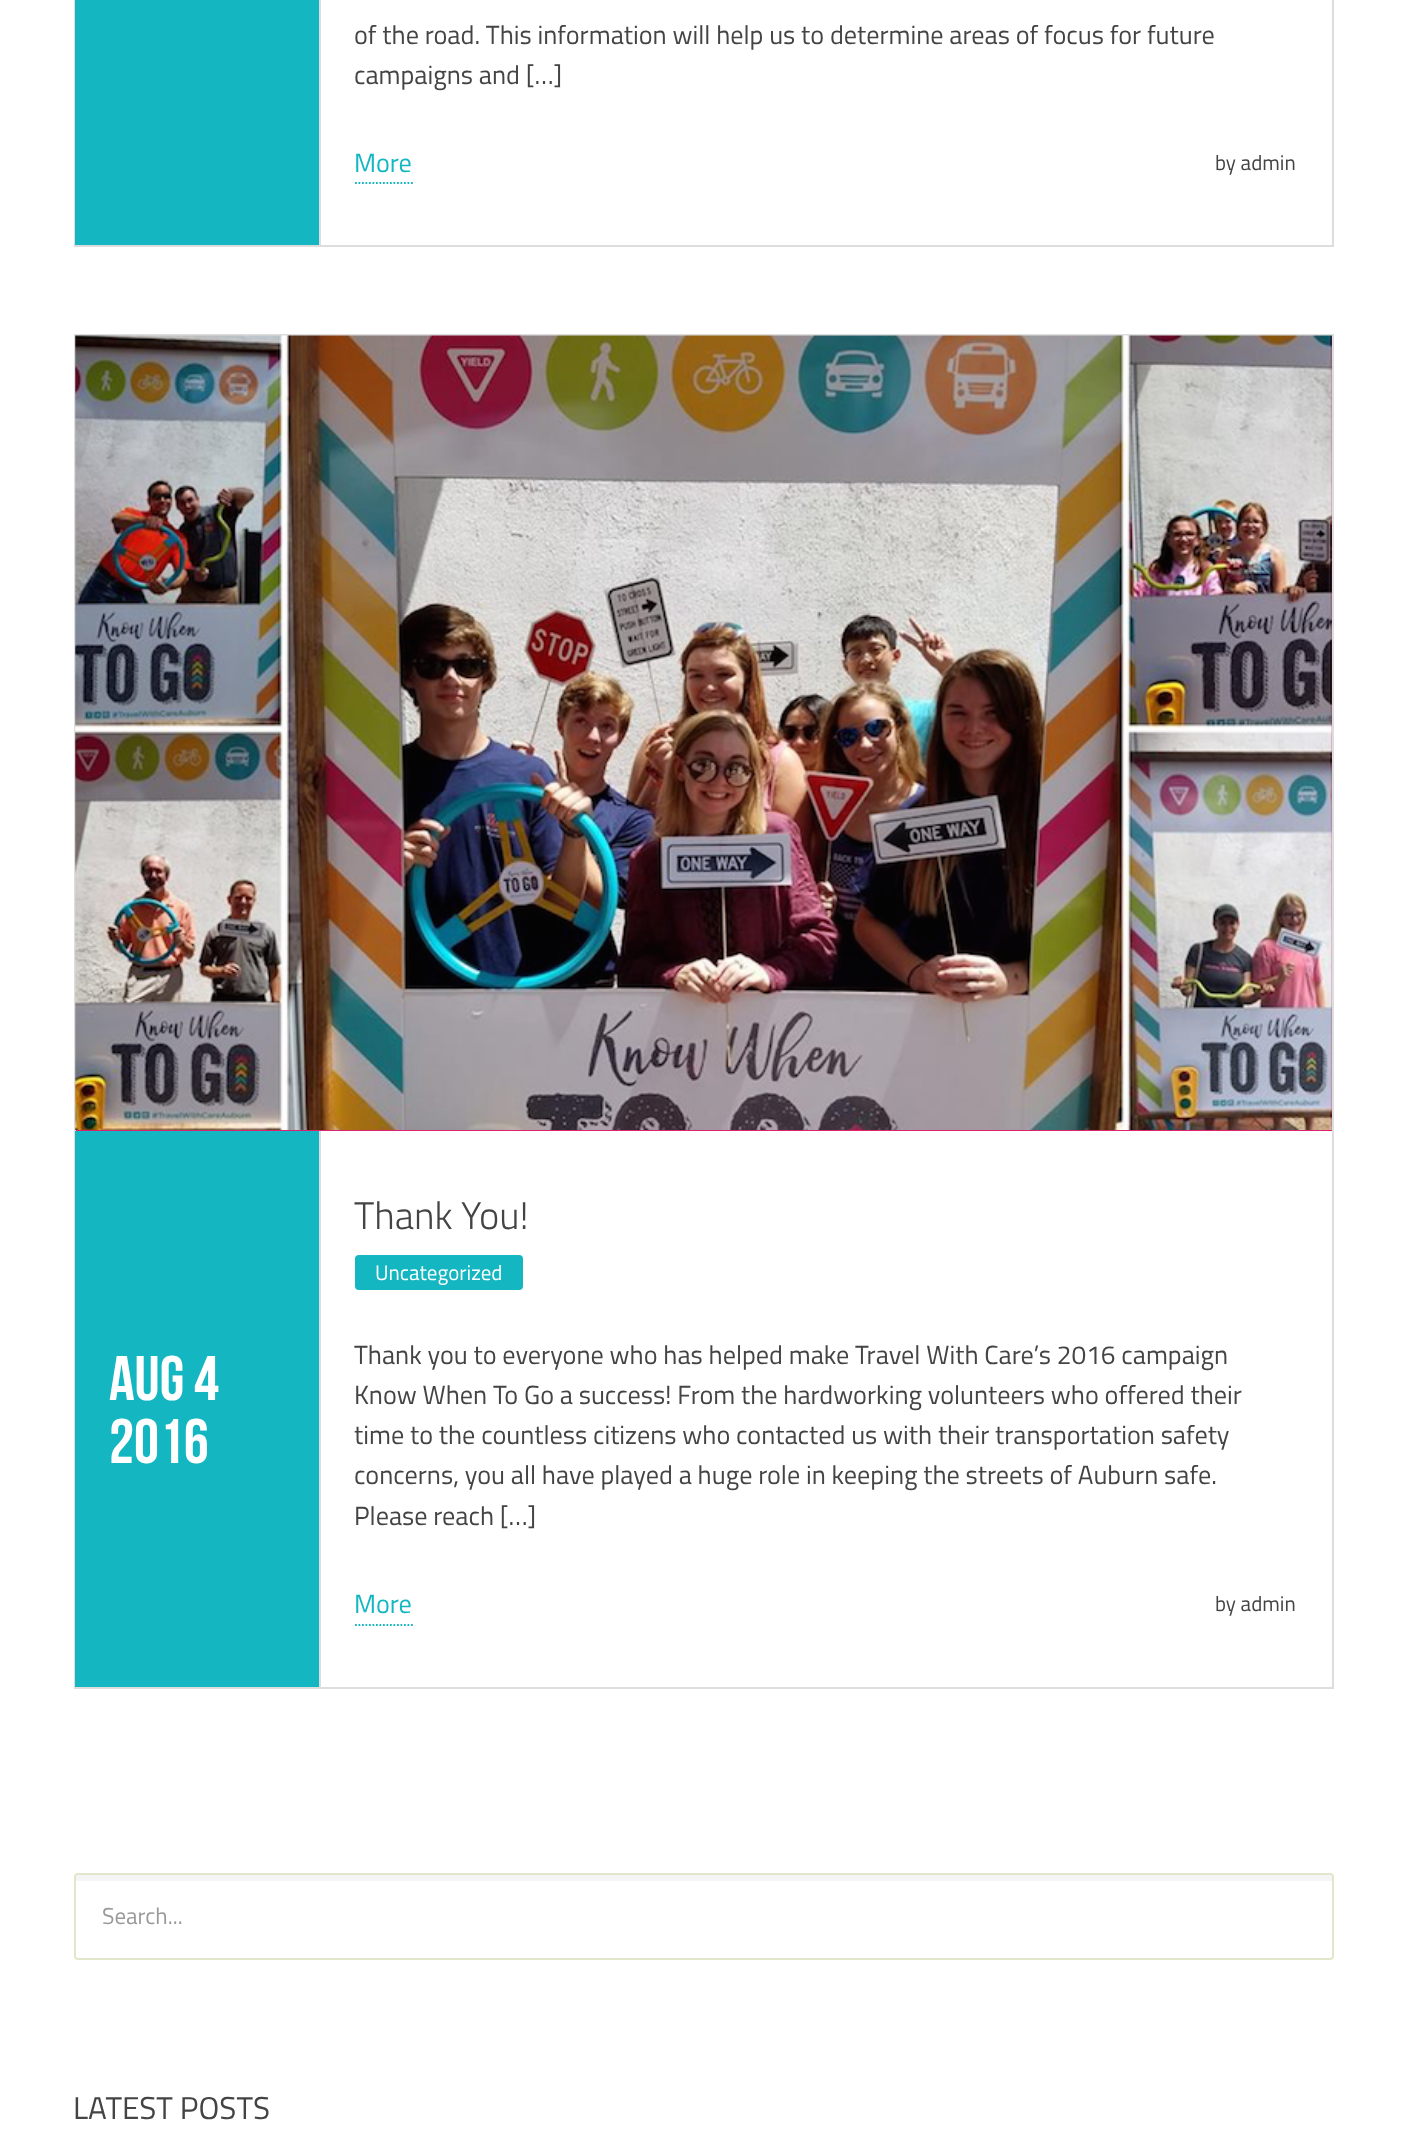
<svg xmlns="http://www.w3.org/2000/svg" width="1404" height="2134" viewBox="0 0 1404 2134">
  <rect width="100%" height="100%" fill="rgb(255,255,255)"/>
  <rect x="75" y="-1" width="1258" height="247" fill="none" stroke="rgb(221,221,221)" stroke-width="2"/>
  <rect x="75" y="0" width="244" height="245" fill="rgb(20,183,193)"/>
  <rect x="319" y="0" width="2" height="245" fill="rgb(221,221,221)"/>
  <g font-family="Titillium Web" font-size="26.25" fill="rgb(68,68,68)">
    <text>
      <tspan x="354" y="44">of the road. This information will help us to determine areas of focus for future</tspan>
      <tspan x="354" y="84">campaigns and […]</tspan>
    </text>
  </g>
  <path d="M355 183H413" fill="none" stroke="rgb(20,183,193)" stroke-width="1.8" stroke-dasharray="1.75 1.75"/>
  <text x="354" y="172" font-family="Titillium Web" font-size="26.25" fill="rgb(20,183,193)">More</text>
  <text x="1215" y="170" font-family="Titillium Web" font-size="21" fill="rgb(68,68,68)">by admin</text>
  <rect x="76" y="336" width="1256" height="795" fill="rgb(221,35,111)"/>
  <rect x="75" y="335" width="1258" height="1353" fill="none" stroke="rgb(221,221,221)" stroke-width="2"/>
  <image x="75" y="335" width="1257" height="795" href="pic1.png"/>
  <text x="354" y="1229" font-family="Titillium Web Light" font-size="38.5" font-weight="300" fill="rgb(68,68,68)">Thank You!</text>
  <rect x="355" y="1255" width="168" height="35" rx="4" fill="rgb(20,183,193)"/>
  <text x="375" y="1280" font-family="Titillium Web" font-size="21" fill="rgb(255,255,255)">Uncategorized</text>
  <rect x="75" y="1131" width="244" height="556" fill="rgb(20,183,193)"/>
  <rect x="319" y="1131" width="2" height="556" fill="rgb(221,221,221)"/>
  <g font-family="Bebas Neue" font-size="63" fill="rgb(255,255,255)">
    <text>
      <tspan x="109" y="1400">Aug 4</tspan>
      <tspan x="109" y="1463">2016</tspan>
    </text>
  </g>
  <g font-family="Titillium Web" font-size="26.25" fill="rgb(68,68,68)">
    <text>
      <tspan x="354" y="1364">Thank you to everyone who has helped make Travel With Care’s 2016 campaign</tspan>
      <tspan x="354" y="1404">Know When To Go a success! From the hardworking volunteers who offered their</tspan>
      <tspan x="354" y="1444">time to the countless citizens who contacted us with their transportation safety</tspan>
      <tspan x="354" y="1484">concerns, you all have played a huge role in keeping the streets of Auburn safe.</tspan>
      <tspan x="354" y="1525">Please reach […]</tspan>
    </text>
  </g>
  <path d="M355 1625H413" fill="none" stroke="rgb(20,183,193)" stroke-width="1.8" stroke-dasharray="1.75 1.75"/>
  <text x="354" y="1613" font-family="Titillium Web" font-size="26.25" fill="rgb(20,183,193)">More</text>
  <text x="1215" y="1611" font-family="Titillium Web" font-size="21" fill="rgb(68,68,68)">by admin</text>
  <path d="M77 1881H1330C1331 1881 1332 1882 1332 1883V1876C1332 1875 1331 1874 1330 1874H77C76 1874 75 1875 75 1876V1883C75 1882 76 1881 77 1881Z" fill="rgb(245,245,245)"/>
  <rect x="75" y="1874" width="1258" height="85" rx="3" fill="none" stroke="rgb(228,230,203)" stroke-width="2"/>
  <text x="102" y="1924" font-family="Titillium Web" font-size="23" fill="rgb(153,153,153)">Search...</text>
  <text x="73" y="2119" font-family="Titillium Web" font-size="31.5" fill="rgb(68,68,68)">LATEST POSTS</text>
</svg>
